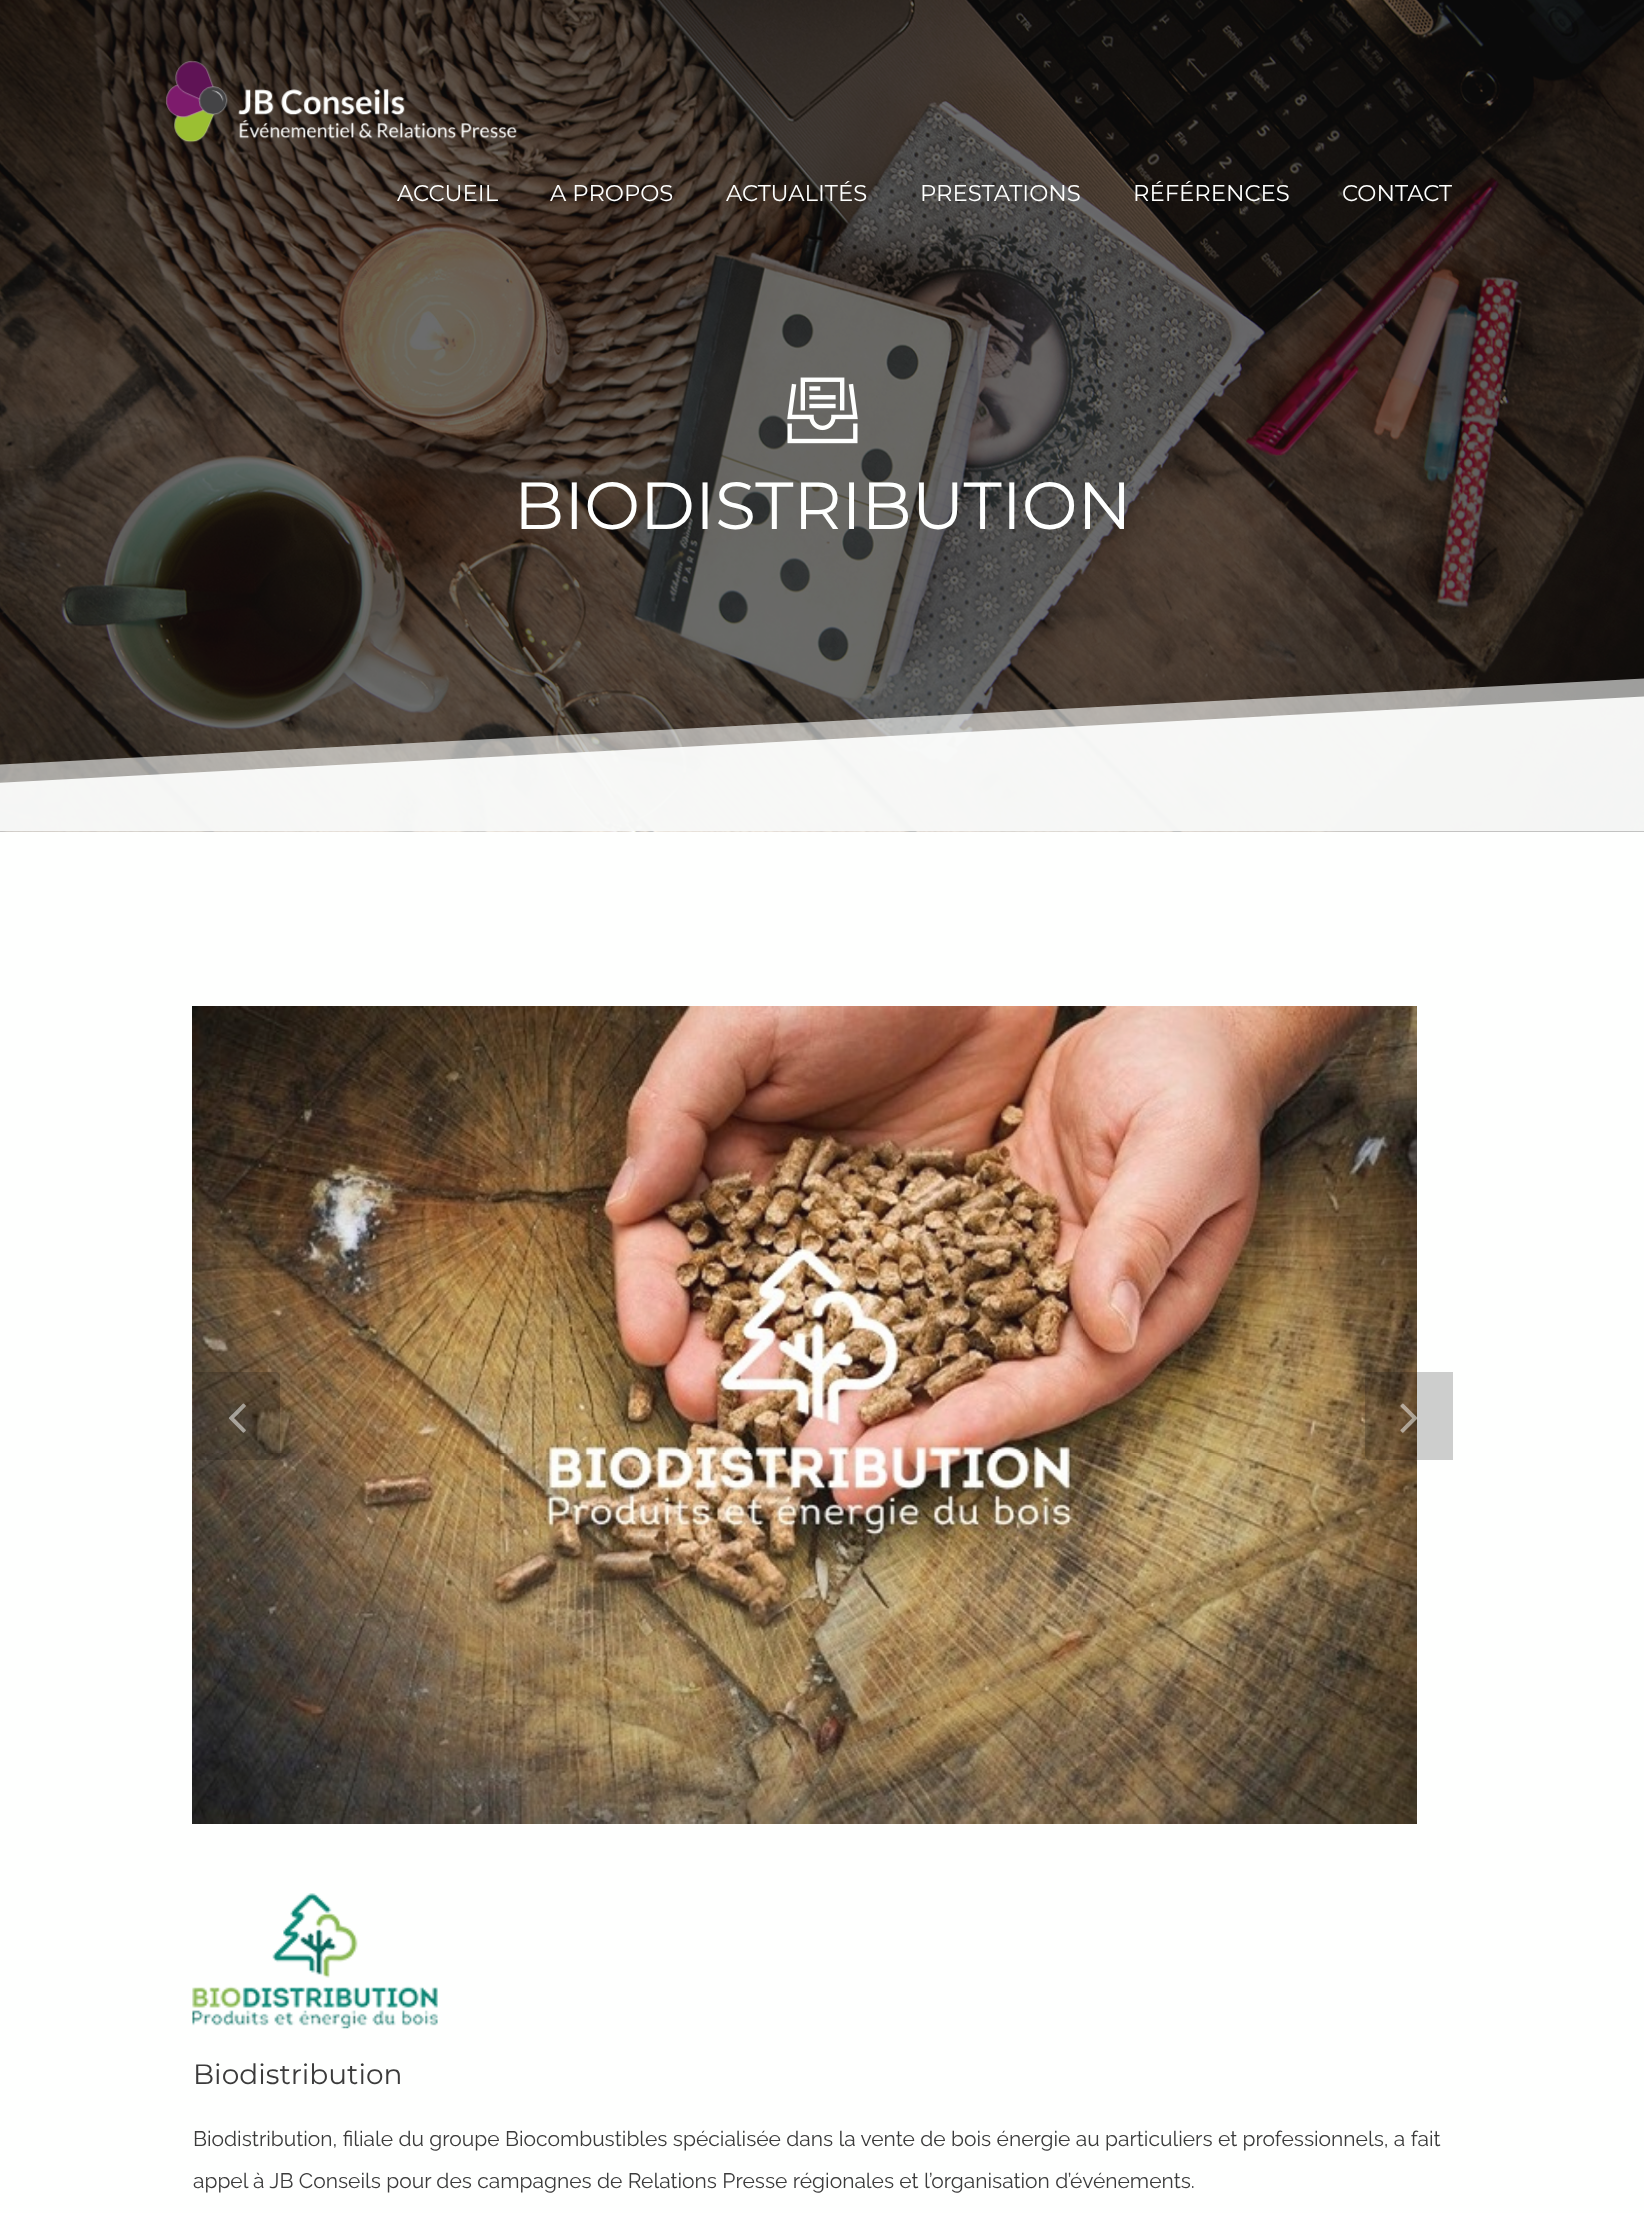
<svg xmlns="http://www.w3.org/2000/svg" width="1644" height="2213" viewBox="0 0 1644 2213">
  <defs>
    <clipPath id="clip1"><rect x="0" y="0" width="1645" height="831"/></clipPath>
  </defs>
  <rect width="100%" height="100%" fill="rgb(254,255,254)"/>
  <image x="0" y="0" width="1644" height="832" href="pic2.png"/>
  <image x="166" y="61" width="351" height="82" href="pic1.png"/>
  <g font-family="Montserrat" font-size="22.75" fill="rgb(254,255,254)">
    <text x="397" y="201">ACCUEIL</text>
    <text x="550" y="201">A PROPOS</text>
    <text x="726" y="201">ACTUALITÉS</text>
    <text x="920" y="201">PRESTATIONS</text>
    <text x="1133" y="201">RÉFÉRENCES</text>
    <text x="1342" y="201">CONTACT</text>
  </g>
  <image x="787" y="377" width="71" height="67" href="pic3.png"/>
  <text x="514" y="529" font-family="Montserrat" font-size="66.5" fill="rgb(254,255,254)">BIODISTRIBUTION</text>
  <g clip-path="url(#clip1)">
    <path d="M-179 774L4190 545L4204 804L-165 1033Z" fill="rgba(254,255,254,0.6)"/>
    <path d="M-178 792L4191 563L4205 822L-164 1051Z" fill="rgba(254,255,254,0.9)"/>
  </g>
  <image x="192" y="1006" width="1225" height="818" href="pic4.png"/>
  <path d="M193 1372H275C278 1372 280 1374 280 1377V1455C280 1458 278 1460 275 1460H193Z" fill="rgba(10,10,10,0.2)"/>
  <image x="228" y="1403" width="18" height="30" href="pic5.png"/>
  <path d="M1370 1372H1453V1460H1370C1367 1460 1365 1458 1365 1455V1377C1365 1374 1367 1372 1370 1372Z" fill="rgba(10,10,10,0.2)"/>
  <image x="1400" y="1403" width="18" height="30" href="pic6.png"/>
  <image x="192" y="1893" width="246" height="136" href="pic7.png"/>
  <text x="193" y="2084" font-family="Montserrat" font-size="28" fill="rgb(59,59,59)">Biodistribution</text>
  <g font-family="Raleway" font-size="21" fill="rgb(59,59,59)">
    <text x="193" y="2146">Biodistribution, filiale du groupe Biocombustibles spécialisée dans la vente de bois énergie au particuliers et professionnels, a fait</text>
    <text x="193" y="2188">appel à JB Conseils pour des campagnes de Relations Presse régionales et l’organisation d’événements.</text>
  </g>
</svg>
